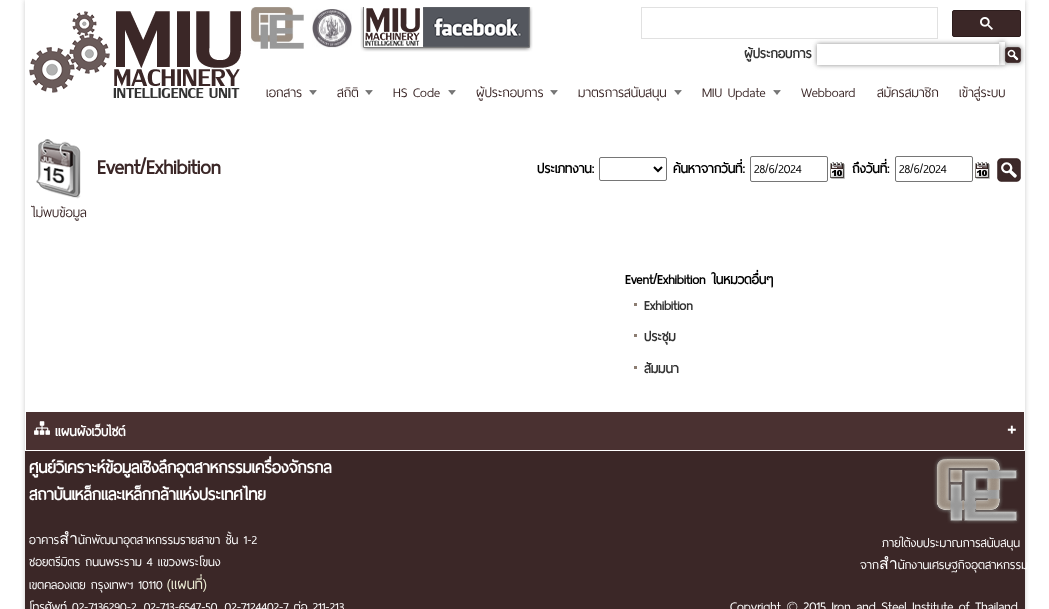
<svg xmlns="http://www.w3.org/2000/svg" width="1049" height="609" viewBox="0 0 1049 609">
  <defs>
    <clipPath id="clip1"><path d="M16 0H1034V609H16ZM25 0H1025V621H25Z" clip-rule="evenodd"/></clipPath>
    <clipPath id="clip2"><path d="M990 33H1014V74H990ZM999 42H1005V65H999Z" clip-rule="evenodd"/></clipPath>
  </defs>
  <rect width="100%" height="100%" fill="rgb(255,255,255)"/>
  <g clip-path="url(#clip1)">
    <rect x="25" y="0" width="1000" height="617" fill="rgb(204,204,204)" filter="blur(2.5px)"/>
  </g>
  <image x="29" y="11" width="212" height="87" href="pic1.png"/>
  <image x="251" y="7" width="53" height="42" href="pic2.png"/>
  <image x="312" y="9" width="40" height="39" href="pic3.png"/>
  <image x="360" y="7" width="173" height="45" href="pic4.png"/>
  <rect x="641.5" y="7.5" width="296" height="31" fill="none" stroke="rgb(225,225,225)"/>
  <rect x="952.5" y="10.5" width="68" height="26" rx="1.5" fill="rgb(59,39,39)" stroke="rgb(45,29,29)"/>
  <image x="980" y="17" width="13" height="13" href="pic5.png"/>
  <text x="744" y="58" font-family="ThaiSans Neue" font-size="17.3" font-weight="bold" fill="rgb(51,51,51)">ผู้ประกอบการ</text>
  <rect x="817" y="44" width="182" height="21" fill="rgb(136,136,136)" filter="blur(2.5px)"/>
  <g clip-path="url(#clip2)">
    <rect x="999" y="42" width="6" height="23" fill="rgb(136,136,136)" filter="blur(2.5px)"/>
  </g>
  <rect x="1005" y="47" width="16" height="16" fill="rgb(136,136,136)" filter="blur(2.5px)"/>
  <rect x="817" y="44" width="182" height="21" fill="rgb(255,255,255)"/>
  <image x="1005" y="47" width="16" height="16" href="pic6.png"/>
  <image x="309" y="90" width="8" height="5" href="pic7.png"/>
  <text x="266" y="97" font-family="ThaiSans Neue" font-size="17.3" fill="rgb(59,39,39)">เอกสาร</text>
  <image x="365" y="90" width="8" height="5" href="pic7.png"/>
  <text x="337" y="97" font-family="ThaiSans Neue" font-size="17.3" fill="rgb(59,39,39)">สถิติ</text>
  <image x="448" y="90" width="8" height="5" href="pic7.png"/>
  <text x="393" y="97" font-family="ThaiSans Neue" font-size="17.3" fill="rgb(59,39,39)">HS Code</text>
  <image x="550" y="90" width="8" height="5" href="pic7.png"/>
  <text x="476" y="97" font-family="ThaiSans Neue" font-size="17.3" fill="rgb(59,39,39)">ผู้ประกอบการ</text>
  <image x="674" y="90" width="8" height="5" href="pic7.png"/>
  <text x="578" y="97" font-family="ThaiSans Neue" font-size="17.3" fill="rgb(59,39,39)">มาตรการสนับสนุน</text>
  <image x="773" y="90" width="8" height="5" href="pic7.png"/>
  <g font-family="ThaiSans Neue" font-size="17.3" fill="rgb(59,39,39)">
    <text x="702" y="97">MIU Update</text>
    <text x="801" y="97">Webboard</text>
    <text x="877" y="97">สมัครสมาชิก</text>
    <text x="959" y="97">เข้าสู่ระบบ</text>
  </g>
  <image x="36" y="139" width="45" height="60" href="pic8.png"/>
  <text x="97" y="174" font-family="ThaiSans Neue" font-size="26.5" font-weight="bold" fill="rgb(59,39,39)">Event/Exhibition</text>
  <text x="537" y="173" font-family="ThaiSans Neue" font-size="17.3" font-weight="bold" fill="rgb(0,0,0)">ประเภทงาน:</text>
  <rect x="599.5" y="157.5" width="67" height="23" rx="1.5" fill="none" stroke="rgb(118,118,118)"/>
  <path d="M654 167L658 171L662 167" fill="none" stroke="rgb(0,0,0)" stroke-width="2"/>
  <text x="673" y="173" font-family="ThaiSans Neue" font-size="17.3" font-weight="bold" fill="rgb(0,0,0)">ค้นหาจากวันที่:</text>
  <rect x="750.5" y="156.5" width="77" height="25" rx="1.5" fill="none" stroke="rgb(118,118,118)"/>
  <text x="754" y="173" font-family="ThaiSans Neue" font-size="16" fill="rgb(0,0,0)">28/6/2024</text>
  <image x="830" y="162" width="15" height="17" href="pic9.png"/>
  <text x="852" y="173" font-family="ThaiSans Neue" font-size="17.3" font-weight="bold" fill="rgb(0,0,0)">ถึงวันที่:</text>
  <rect x="895.5" y="156.5" width="77" height="25" rx="1.5" fill="none" stroke="rgb(118,118,118)"/>
  <text x="899" y="173" font-family="ThaiSans Neue" font-size="16" fill="rgb(0,0,0)">28/6/2024</text>
  <image x="975" y="162" width="15" height="17" href="pic9.png"/>
  <image x="997" y="158" width="24" height="24" href="pic10.png"/>
  <text x="31" y="217" font-family="ThaiSans Neue" font-size="17.3" fill="rgb(59,39,39)">ไม่พบข้อมูล</text>
  <text x="625" y="284" font-family="ThaiSans Neue" font-size="17.3" font-weight="bold" fill="rgb(0,0,0)">Event/Exhibition ในหมวดอื่นๆ</text>
  <rect x="634" y="303" width="3" height="3" fill="rgb(140,125,114)"/>
  <text x="644" y="310" font-family="ThaiSans Neue" font-size="17.3" font-weight="bold" fill="rgb(51,51,51)">Exhibition</text>
  <rect x="634" y="334" width="3" height="3" fill="rgb(140,125,114)"/>
  <text x="644" y="341" font-family="ThaiSans Neue" font-size="17.3" font-weight="bold" fill="rgb(51,51,51)">ประชุม</text>
  <rect x="634" y="366" width="3" height="3" fill="rgb(140,125,114)"/>
  <text x="644" y="373" font-family="ThaiSans Neue" font-size="17.3" font-weight="bold" fill="rgb(51,51,51)">สัมมนา</text>
  <rect x="26" y="412" width="998" height="38" fill="rgb(74,49,49)"/>
  <image x="34" y="421" width="16" height="14" href="pic11.png"/>
  <text x="55" y="436" font-family="ThaiSans Neue" font-size="17.3" font-weight="bold" fill="rgb(255,255,255)">แผนผังเว็บไซต์</text>
  <text x="1007" y="435" font-family="ThaiSans Neue" font-size="24" font-weight="bold" fill="rgb(255,255,255)">+</text>
  <rect x="25" y="451" width="1000" height="158" fill="rgb(59,39,39)"/>
  <g font-family="ThaiSans Neue" font-size="21.3" font-weight="bold" fill="rgb(255,255,255)">
    <text>
      <tspan x="29" y="473">ศูนย์วิเคราะห์ข้อมูลเชิงลึกอุตสาหกรรมเครื่องจักรกล</tspan>
      <tspan x="29" y="500">สถาบันเหล็กและเหล็กกล้าแห่งประเทศไทย</tspan>
    </text>
  </g>
  <g font-family="ThaiSans Neue" font-size="16" fill="rgb(255,255,255)">
    <text>
      <tspan x="29" y="544">อาคารสำนักพัฒนาอุตสาหกรรมรายสาขา ชั้น 1-2</tspan>
      <tspan x="29" y="566">ซอยตรีมิตร ถนนพระราม 4 แขวงพระโขนง</tspan>
      <tspan x="29" y="589">เขตคลองเตย กรุงเทพฯ 10110</tspan>
    </text>
  </g>
  <text x="167" y="589" font-family="ThaiSans Neue" font-size="19" fill="rgb(238,238,213)">(แผนที่)</text>
  <text x="29" y="611" font-family="ThaiSans Neue" font-size="16" fill="rgb(255,255,255)">โทรศัพท์ 02-7136290-2, 02-713-6547-50, 02-7124402-7 ต่อ 211-213</text>
  <image x="933" y="455" width="87" height="69" href="pic12.png"/>
  <g font-family="ThaiSans Neue" font-size="16" fill="rgb(255,255,255)">
    <text x="882" y="547">ภายใต้งบประมาณการสนับสนุน</text>
    <text x="860" y="569">จากสำนักงานเศรษฐกิจอุตสาหกรรม</text>
  </g>
  <text x="730" y="611" font-family="ThaiSans Neue" font-size="17.3" fill="rgb(255,255,255)">Copyright © 2015 Iron and Steel Institute of Thailand</text>
</svg>
